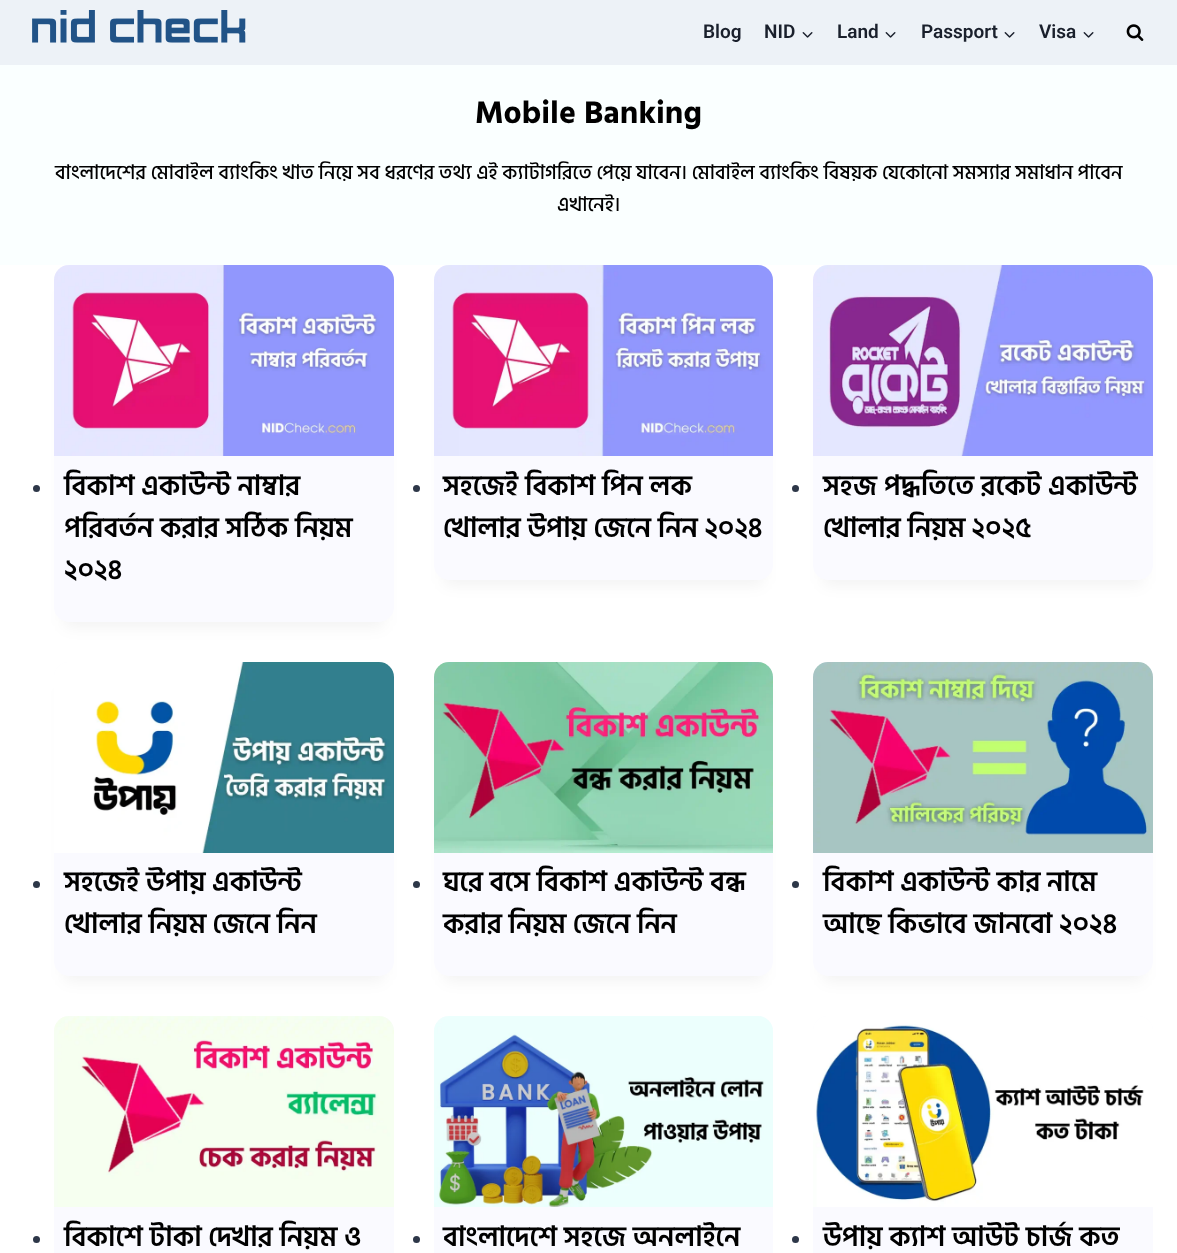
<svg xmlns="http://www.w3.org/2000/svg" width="1177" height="1253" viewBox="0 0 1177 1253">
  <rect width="100%" height="100%" fill="rgb(255,255,255)"/>
  <rect x="0" y="0" width="1177" height="65" fill="rgb(237,242,247)"/>
  <image x="32" y="10" width="214" height="33" href="pic1.png"/>
  <g font-family="Roboto" font-size="19" font-weight="600" fill="rgb(26,32,44)">
    <text x="703" y="38">Blog</text>
    <text x="764" y="38">NID</text>
  </g>
  <image x="802" y="32" width="11" height="6" href="pic2.png"/>
  <text x="837" y="38" font-family="Roboto" font-size="19" font-weight="600" fill="rgb(26,32,44)">Land</text>
  <image x="885" y="32" width="11" height="6" href="pic2.png"/>
  <text x="921" y="38" font-family="Roboto" font-size="19" font-weight="600" fill="rgb(26,32,44)">Passport</text>
  <image x="1004" y="32" width="11" height="6" href="pic2.png"/>
  <text x="1039" y="38" font-family="Roboto" font-size="19" font-weight="600" fill="rgb(26,32,44)">Visa</text>
  <image x="1083" y="32" width="11" height="6" href="pic2.png"/>
  <image x="1126" y="24" width="18" height="17" href="pic3.png"/>
  <rect x="0" y="65" width="1177" height="200" fill="rgb(250,255,255)"/>
  <text x="475" y="123" font-family="Hind Siliguri" font-size="32" font-weight="bold" fill="rgb(0,0,0)">Mobile Banking</text>
  <g font-family="Hind Siliguri" font-size="20" font-weight="500" fill="rgb(0,0,0)">
    <text x="55" y="179">বাংলাদেশের মোবাইল ব্যাংকিং খাত নিয়ে সব ধরণের তথ্য এই ক্যাটাগরিতে পেয়ে যাবেন। মোবাইল ব্যাংকিং বিষয়ক যেকোনো সমস্যার সমাধান পাবেন</text>
    <text x="557" y="211">এখানেই।</text>
  </g>
  <circle cx="36.5" cy="488.5" r="3.5" fill="rgb(45,55,72)"/>
  <rect x="64" y="290" width="320" height="337" rx="5" fill="rgba(0,0,0,0.05)" filter="blur(7.5px)"/>
  <rect x="54" y="265" width="340" height="357" rx="15" fill="rgb(250,250,255)"/>
  <image x="54" y="265" width="340" height="191" href="pic4.png"/>
  <g font-family="Hind Siliguri" font-size="28" font-weight="600" fill="rgb(0,0,0)">
    <text>
      <tspan x="64" y="495">বিকাশ একাউন্ট নাম্বার</tspan>
      <tspan x="64" y="537">পরিবর্তন করার সঠিক নিয়ম</tspan>
      <tspan x="64" y="579">২০২৪</tspan>
    </text>
  </g>
  <circle cx="416.5" cy="488.5" r="3.5" fill="rgb(45,55,72)"/>
  <rect x="444" y="290" width="319" height="295" rx="5" fill="rgba(0,0,0,0.05)" filter="blur(7.5px)"/>
  <rect x="434" y="265" width="339" height="315" rx="15" fill="rgb(250,250,255)"/>
  <image x="434" y="265" width="339" height="191" href="pic5.png"/>
  <g font-family="Hind Siliguri" font-size="28" font-weight="600" fill="rgb(0,0,0)">
    <text>
      <tspan x="443" y="495">সহজেই বিকাশ পিন লক</tspan>
      <tspan x="443" y="537">খোলার উপায় জেনে নিন ২০২৪</tspan>
    </text>
  </g>
  <circle cx="795.5" cy="488.5" r="3.5" fill="rgb(45,55,72)"/>
  <rect x="823" y="290" width="320" height="295" rx="5" fill="rgba(0,0,0,0.05)" filter="blur(7.5px)"/>
  <rect x="813" y="265" width="340" height="315" rx="15" fill="rgb(250,250,255)"/>
  <image x="813" y="265" width="340" height="191" href="pic6.png"/>
  <g font-family="Hind Siliguri" font-size="28" font-weight="600" fill="rgb(0,0,0)">
    <text>
      <tspan x="823" y="495">সহজ পদ্ধতিতে রকেট একাউন্ট</tspan>
      <tspan x="823" y="537">খোলার নিয়ম ২০২৫</tspan>
    </text>
  </g>
  <circle cx="36.5" cy="884.5" r="3.5" fill="rgb(45,55,72)"/>
  <rect x="64" y="687" width="320" height="294" rx="5" fill="rgba(0,0,0,0.05)" filter="blur(7.5px)"/>
  <rect x="54" y="662" width="340" height="314" rx="15" fill="rgb(250,250,255)"/>
  <image x="54" y="662" width="340" height="191" href="pic7.png"/>
  <g font-family="Hind Siliguri" font-size="28" font-weight="600" fill="rgb(0,0,0)">
    <text>
      <tspan x="64" y="891">সহজেই উপায় একাউন্ট</tspan>
      <tspan x="64" y="933">খোলার নিয়ম জেনে নিন</tspan>
    </text>
  </g>
  <circle cx="416.5" cy="884.5" r="3.5" fill="rgb(45,55,72)"/>
  <rect x="444" y="687" width="319" height="294" rx="5" fill="rgba(0,0,0,0.05)" filter="blur(7.5px)"/>
  <rect x="434" y="662" width="339" height="314" rx="15" fill="rgb(250,250,255)"/>
  <image x="434" y="662" width="339" height="191" href="pic8.png"/>
  <g font-family="Hind Siliguri" font-size="28" font-weight="600" fill="rgb(0,0,0)">
    <text>
      <tspan x="443" y="891">ঘরে বসে বিকাশ একাউন্ট বন্ধ</tspan>
      <tspan x="443" y="933">করার নিয়ম জেনে নিন</tspan>
    </text>
  </g>
  <circle cx="795.5" cy="884.5" r="3.5" fill="rgb(45,55,72)"/>
  <rect x="823" y="687" width="320" height="294" rx="5" fill="rgba(0,0,0,0.05)" filter="blur(7.5px)"/>
  <rect x="813" y="662" width="340" height="314" rx="15" fill="rgb(250,250,255)"/>
  <image x="813" y="662" width="340" height="191" href="pic9.png"/>
  <g font-family="Hind Siliguri" font-size="28" font-weight="600" fill="rgb(0,0,0)">
    <text>
      <tspan x="823" y="891">বিকাশ একাউন্ট কার নামে</tspan>
      <tspan x="823" y="933">আছে কিভাবে জানবো ২০২৪</tspan>
    </text>
  </g>
  <circle cx="36.5" cy="1239.5" r="3.5" fill="rgb(45,55,72)"/>
  <rect x="54" y="1016" width="340" height="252" rx="15" fill="rgb(250,250,255)"/>
  <image x="54" y="1016" width="340" height="191" href="pic10.png"/>
  <text x="64" y="1246" font-family="Hind Siliguri" font-size="28" font-weight="600" fill="rgb(0,0,0)">বিকাশে টাকা দেখার নিয়ম ও</text>
  <circle cx="416.5" cy="1239.5" r="3.5" fill="rgb(45,55,72)"/>
  <rect x="434" y="1016" width="339" height="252" rx="15" fill="rgb(250,250,255)"/>
  <image x="434" y="1016" width="339" height="191" href="pic11.png"/>
  <text x="443" y="1246" font-family="Hind Siliguri" font-size="28" font-weight="600" fill="rgb(0,0,0)">বাংলাদেশে সহজে অনলাইনে</text>
  <circle cx="795.5" cy="1239.5" r="3.5" fill="rgb(45,55,72)"/>
  <rect x="813" y="1016" width="340" height="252" rx="15" fill="rgb(250,250,255)"/>
  <image x="813" y="1016" width="340" height="191" href="pic12.png"/>
  <text x="823" y="1246" font-family="Hind Siliguri" font-size="28" font-weight="600" fill="rgb(0,0,0)">উপায় ক্যাশ আউট চার্জ কত</text>
</svg>
